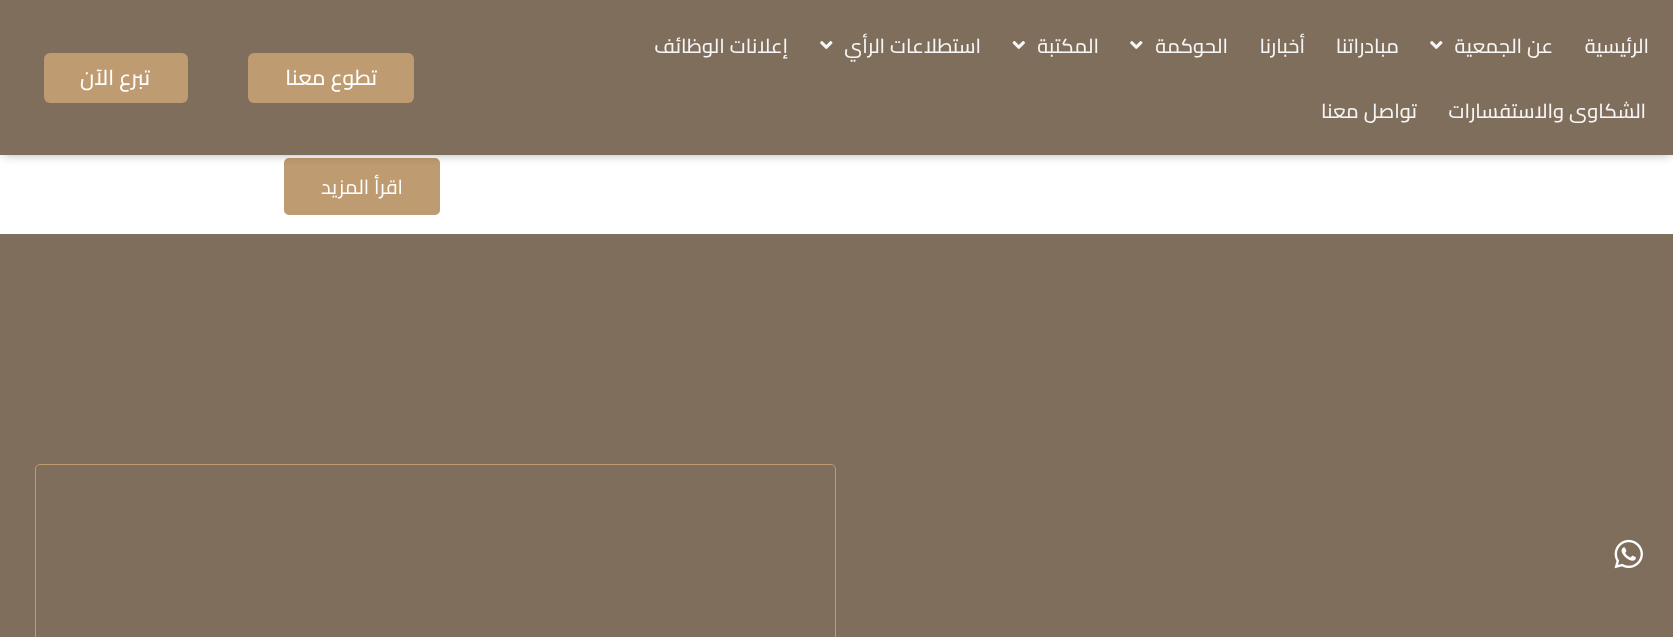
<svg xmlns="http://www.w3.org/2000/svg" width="1673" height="637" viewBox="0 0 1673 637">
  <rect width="100%" height="100%" fill="rgb(255,255,255)"/>
  <rect x="284" y="158" width="156" height="57" rx="5" fill="rgb(191,155,113)"/>
  <rect x="3" y="3" width="1668" height="150" fill="rgba(0,0,0,0.41)" filter="blur(6px)"/>
  <rect x="0" y="0" width="1673" height="155" fill="rgb(128,110,92)"/>
  <g font-family="Cairo" font-size="20" font-weight="500" direction="rtl" fill="rgb(246,246,246)">
    <text x="1649" y="53">الرئيسية</text>
    <text x="1553" y="53">عن الجمعية</text>
  </g>
  <image x="1430" y="41" width="13" height="8" href="pic1.png"/>
  <g font-family="Cairo" font-size="20" font-weight="500" direction="rtl" fill="rgb(246,246,246)">
    <text x="1399" y="53">مبادراتنا</text>
    <text x="1305" y="53">أخبارنا</text>
    <text x="1228" y="53">الحوكمة</text>
  </g>
  <image x="1130" y="41" width="13" height="8" href="pic1.png"/>
  <text x="1099" y="53" font-family="Cairo" font-size="20" font-weight="500" direction="rtl" fill="rgb(246,246,246)">المكتبة</text>
  <image x="1012" y="41" width="13" height="8" href="pic2.png"/>
  <text x="981" y="53" font-family="Cairo" font-size="20" font-weight="500" direction="rtl" fill="rgb(246,246,246)">استطلاعات الرأي</text>
  <image x="820" y="41" width="13" height="8" href="pic1.png"/>
  <g font-family="Cairo" font-size="20" font-weight="500" direction="rtl" fill="rgb(246,246,246)">
    <text x="788" y="53">إعلانات الوظائف</text>
    <text x="1646" y="118">الشكاوى والاستفسارات</text>
    <text x="1417" y="118">تواصل معنا</text>
  </g>
  <rect x="248" y="53" width="166" height="50" rx="6" fill="rgb(191,155,113)"/>
  <text x="377" y="85" font-family="Cairo" font-size="21.25" font-weight="500" direction="rtl" fill="rgb(255,255,255)">تطوع معنا</text>
  <rect x="44" y="53" width="144" height="50" rx="6" fill="rgb(191,155,113)"/>
  <text x="150" y="85" font-family="Cairo" font-size="21.25" font-weight="500" direction="rtl" fill="rgb(255,255,255)">تبرع الآن</text>
  <text x="403" y="194" font-family="Cairo" font-size="20" direction="rtl" fill="rgb(255,255,255)">اقرأ المزيد</text>
  <rect x="0" y="234" width="1673" height="403" fill="rgb(128,110,92)"/>
  <rect x="35.5" y="464.5" width="800" height="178" rx="4.5" fill="none" stroke="rgb(191,155,113)"/>
  <image x="1614" y="539" width="29" height="30" href="pic3.png"/>
</svg>
